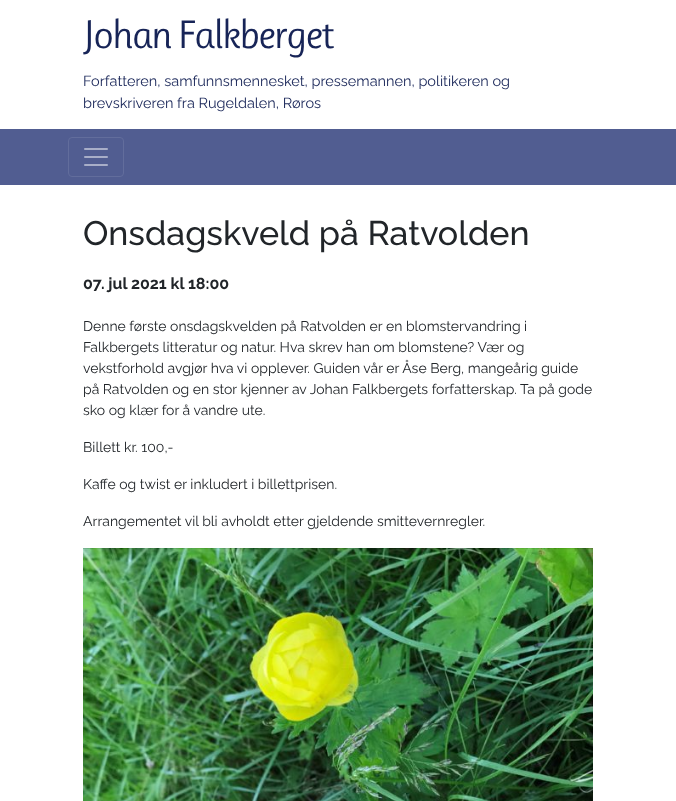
<svg xmlns="http://www.w3.org/2000/svg" width="676" height="801" viewBox="0 0 676 801">
  <rect width="100%" height="100%" fill="rgb(255,255,255)"/>
  <text x="83" y="48" font-family="Ruluko" font-size="40" letter-spacing="-2" fill="rgb(23,36,87)">Johan Falkberget</text>
  <g font-family="Raleway" font-size="14.5" fill="rgb(23,36,87)">
    <text>
      <tspan x="83" y="86">Forfatteren, samfunnsmennesket, pressemannen, politikeren og</tspan>
      <tspan x="83" y="108">brevskriveren fra Rugeldalen, Røros</tspan>
    </text>
  </g>
  <rect x="0" y="129" width="676" height="56" fill="rgb(81,93,145)"/>
  <rect x="68.5" y="137.5" width="55" height="39" rx="3.5" fill="none" stroke="rgb(98,109,156)"/>
  <image x="84" y="148" width="24" height="18" href="pic1.png"/>
  <text x="83" y="245" font-family="Raleway" font-size="34" font-weight="500" fill="rgb(33,37,41)">Onsdagskveld på Ratvolden</text>
  <text x="83" y="289" font-family="Raleway" font-size="16" font-weight="bold" fill="rgb(33,37,41)">07. jul 2021 kl 18:00</text>
  <g font-family="Raleway" font-size="14" fill="rgb(33,37,41)">
    <text>
      <tspan x="83" y="331">Denne første onsdagskvelden på Ratvolden er en blomstervandring i</tspan>
      <tspan x="83" y="352">Falkbergets litteratur og natur. Hva skrev han om blomstene? Vær og</tspan>
      <tspan x="83" y="373">vekstforhold avgjør hva vi opplever. Guiden vår er Åse Berg, mangeårig guide</tspan>
      <tspan x="83" y="394">på Ratvolden og en stor kjenner av Johan Falkbergets forfatterskap. Ta på gode</tspan>
      <tspan x="83" y="415">sko og klær for å vandre ute.</tspan>
    </text>
    <text x="83" y="452">Billett kr. 100,-</text>
    <text x="83" y="489">Kaffe og twist er inkludert i billettprisen.</text>
    <text x="83" y="526">Arrangementet vil bli avholdt etter gjeldende smittevernregler.</text>
  </g>
  <image x="83" y="548" width="510" height="253" href="pic2.png"/>
</svg>
